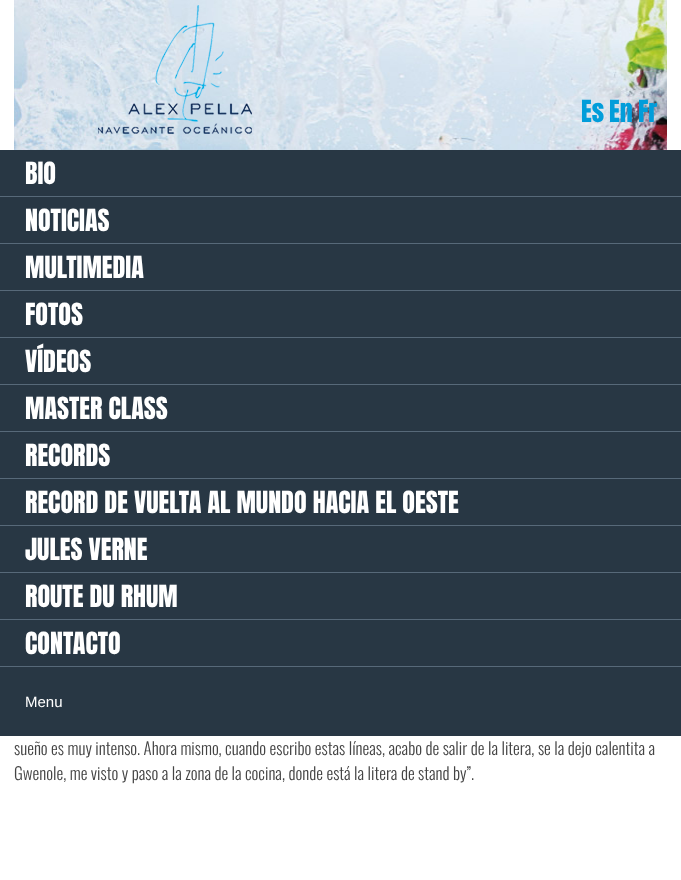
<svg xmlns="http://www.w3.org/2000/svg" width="681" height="880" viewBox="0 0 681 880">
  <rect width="100%" height="100%" fill="rgb(255,255,255)"/>
  <image x="14" y="0" width="653" height="150" href="pic1.png"/>
  <image x="98" y="5" width="154" height="129" href="pic2.png"/>
  <g font-family="Anton" font-size="26" fill="rgb(1,157,218)">
    <text x="581" y="122">Es</text>
    <text x="609" y="122">En</text>
    <text x="638" y="122">Fr</text>
  </g>
  <rect x="0" y="150" width="681" height="586" fill="rgb(40,55,68)"/>
  <rect x="0" y="196" width="681" height="1" fill="rgb(87,105,121)"/>
  <text x="25" y="184" font-family="Anton" font-size="26" fill="rgb(255,255,255)">BIO</text>
  <rect x="0" y="243" width="681" height="1" fill="rgb(87,105,121)"/>
  <text x="25" y="231" font-family="Anton" font-size="26" fill="rgb(255,255,255)">NOTICIAS</text>
  <rect x="0" y="290" width="681" height="1" fill="rgb(87,105,121)"/>
  <text x="25" y="278" font-family="Anton" font-size="26" fill="rgb(255,255,255)">MULTIMEDIA</text>
  <rect x="0" y="337" width="681" height="1" fill="rgb(87,105,121)"/>
  <text x="25" y="325" font-family="Anton" font-size="26" fill="rgb(255,255,255)">FOTOS</text>
  <rect x="0" y="384" width="681" height="1" fill="rgb(87,105,121)"/>
  <text x="25" y="372" font-family="Anton" font-size="26" fill="rgb(255,255,255)">VÍDEOS</text>
  <rect x="0" y="431" width="681" height="1" fill="rgb(87,105,121)"/>
  <text x="25" y="419" font-family="Anton" font-size="26" fill="rgb(255,255,255)">MASTER CLASS</text>
  <rect x="0" y="478" width="681" height="1" fill="rgb(87,105,121)"/>
  <text x="25" y="466" font-family="Anton" font-size="26" fill="rgb(255,255,255)">RECORDS</text>
  <rect x="0" y="525" width="681" height="1" fill="rgb(87,105,121)"/>
  <text x="25" y="513" font-family="Anton" font-size="26" fill="rgb(255,255,255)">RECORD DE VUELTA AL MUNDO HACIA EL OESTE</text>
  <rect x="0" y="572" width="681" height="1" fill="rgb(87,105,121)"/>
  <text x="25" y="560" font-family="Anton" font-size="26" fill="rgb(255,255,255)">JULES VERNE</text>
  <rect x="0" y="619" width="681" height="1" fill="rgb(87,105,121)"/>
  <text x="25" y="607" font-family="Anton" font-size="26" fill="rgb(255,255,255)">ROUTE DU RHUM</text>
  <rect x="0" y="666" width="681" height="1" fill="rgb(87,105,121)"/>
  <text x="25" y="654" font-family="Anton" font-size="26" fill="rgb(255,255,255)">CONTACTO</text>
  <text x="25" y="707" font-family="Liberation Sans" font-size="15" fill="rgb(255,255,255)">Menu</text>
  <g font-family="Oswald" font-size="17" font-weight="300" fill="rgb(68,68,68)">
    <text>
      <tspan x="14" y="755">sueño es muy intenso. Ahora mismo, cuando escribo estas líneas, acabo de salir de la litera, se la dejo calentita a</tspan>
      <tspan x="14" y="780">Gwenole, me visto y paso a la zona de la cocina, donde está la litera de stand by”.</tspan>
    </text>
  </g>
</svg>
